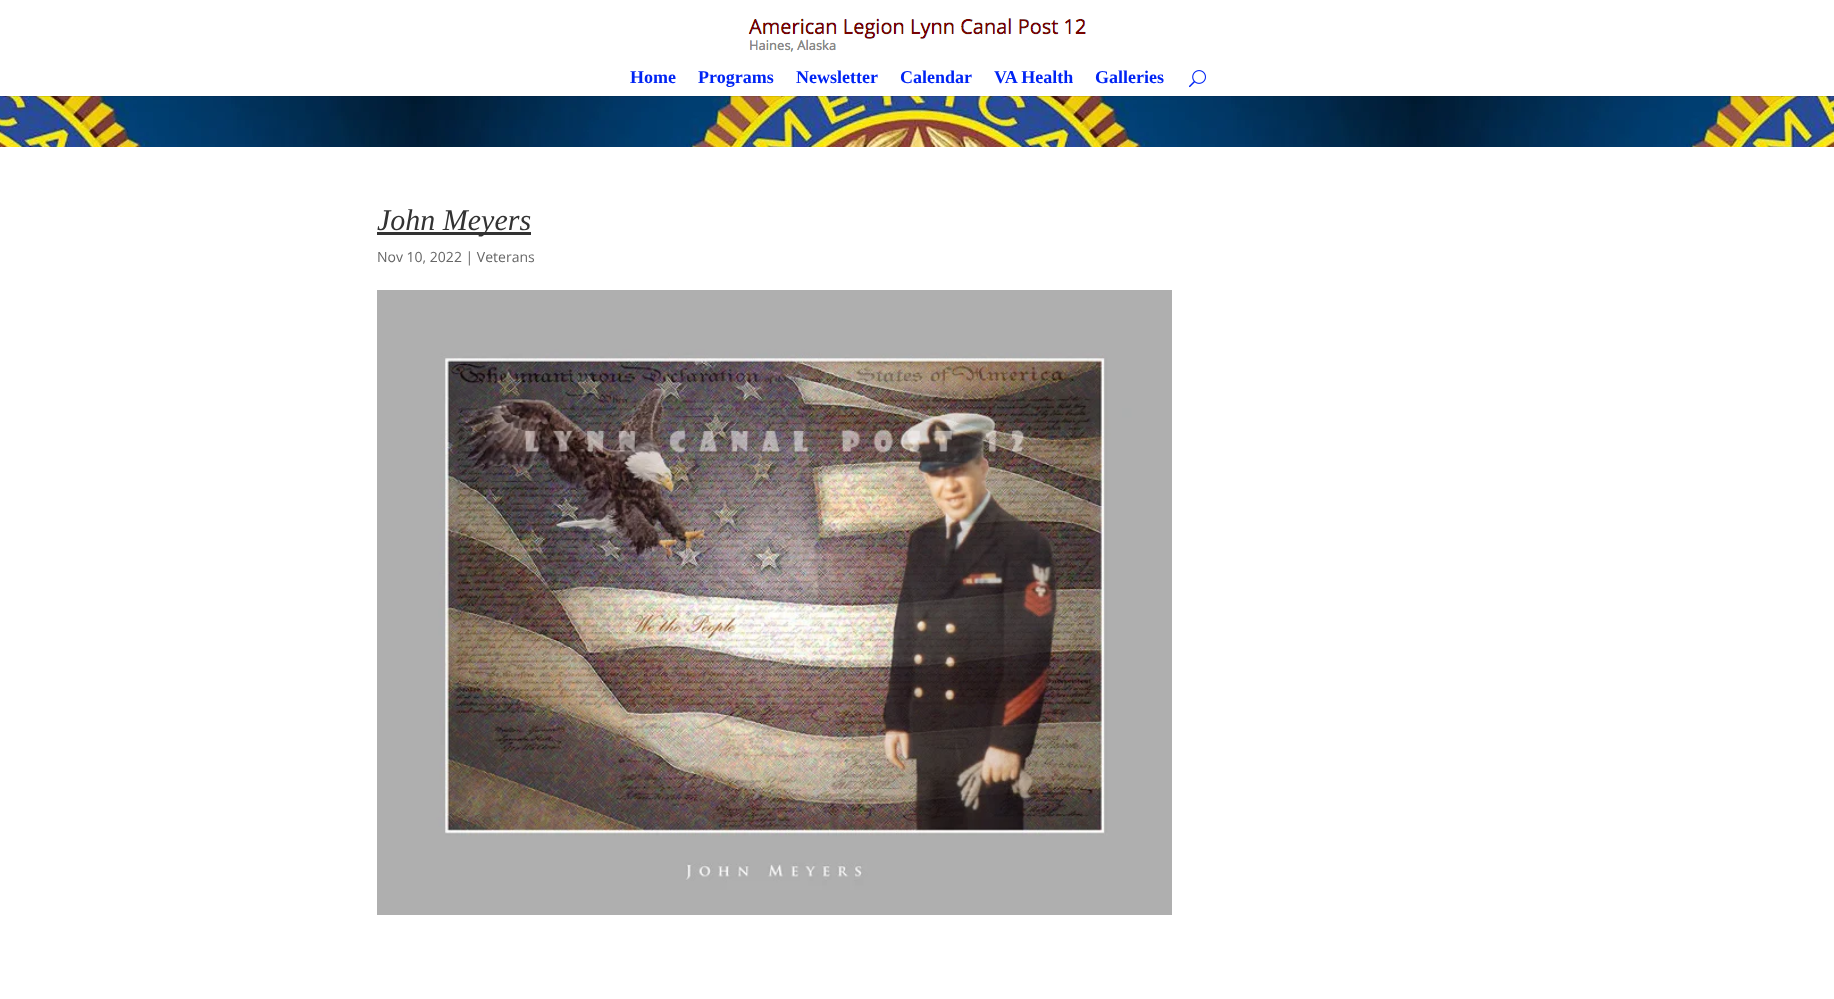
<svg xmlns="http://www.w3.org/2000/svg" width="1834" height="999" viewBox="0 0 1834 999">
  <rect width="100%" height="100%" fill="rgb(255,255,255)"/>
  <image x="0" y="96" width="1834" height="51" href="pic1.png"/>
  <rect x="0" y="96" width="1834" height="1" fill="rgba(0,0,0,0.1)"/>
  <image x="748" y="18" width="338" height="34" href="pic2.png"/>
  <g font-family="Liberation Serif" font-size="18" font-weight="bold" fill="rgb(0,36,244)">
    <text x="630" y="83">Home</text>
    <text x="698" y="83">Programs</text>
    <text x="796" y="83">Newsletter</text>
    <text x="900" y="83">Calendar</text>
    <text x="994" y="83">VA Health</text>
    <text x="1095" y="83">Galleries</text>
  </g>
  <image x="1189" y="70" width="17" height="18" href="pic3.png"/>
  <rect x="377" y="232" width="154" height="3" fill="rgb(51,51,51)"/>
  <text x="377" y="230" font-family="Liberation Serif" font-size="30" font-style="italic" fill="rgb(51,51,51)">John Meyers</text>
  <text x="377" y="262" font-family="Open Sans" font-size="14" fill="rgb(102,102,102)">Nov 10, 2022 | Veterans</text>
  <image x="377" y="290" width="795" height="625" href="pic4.png"/>
</svg>
